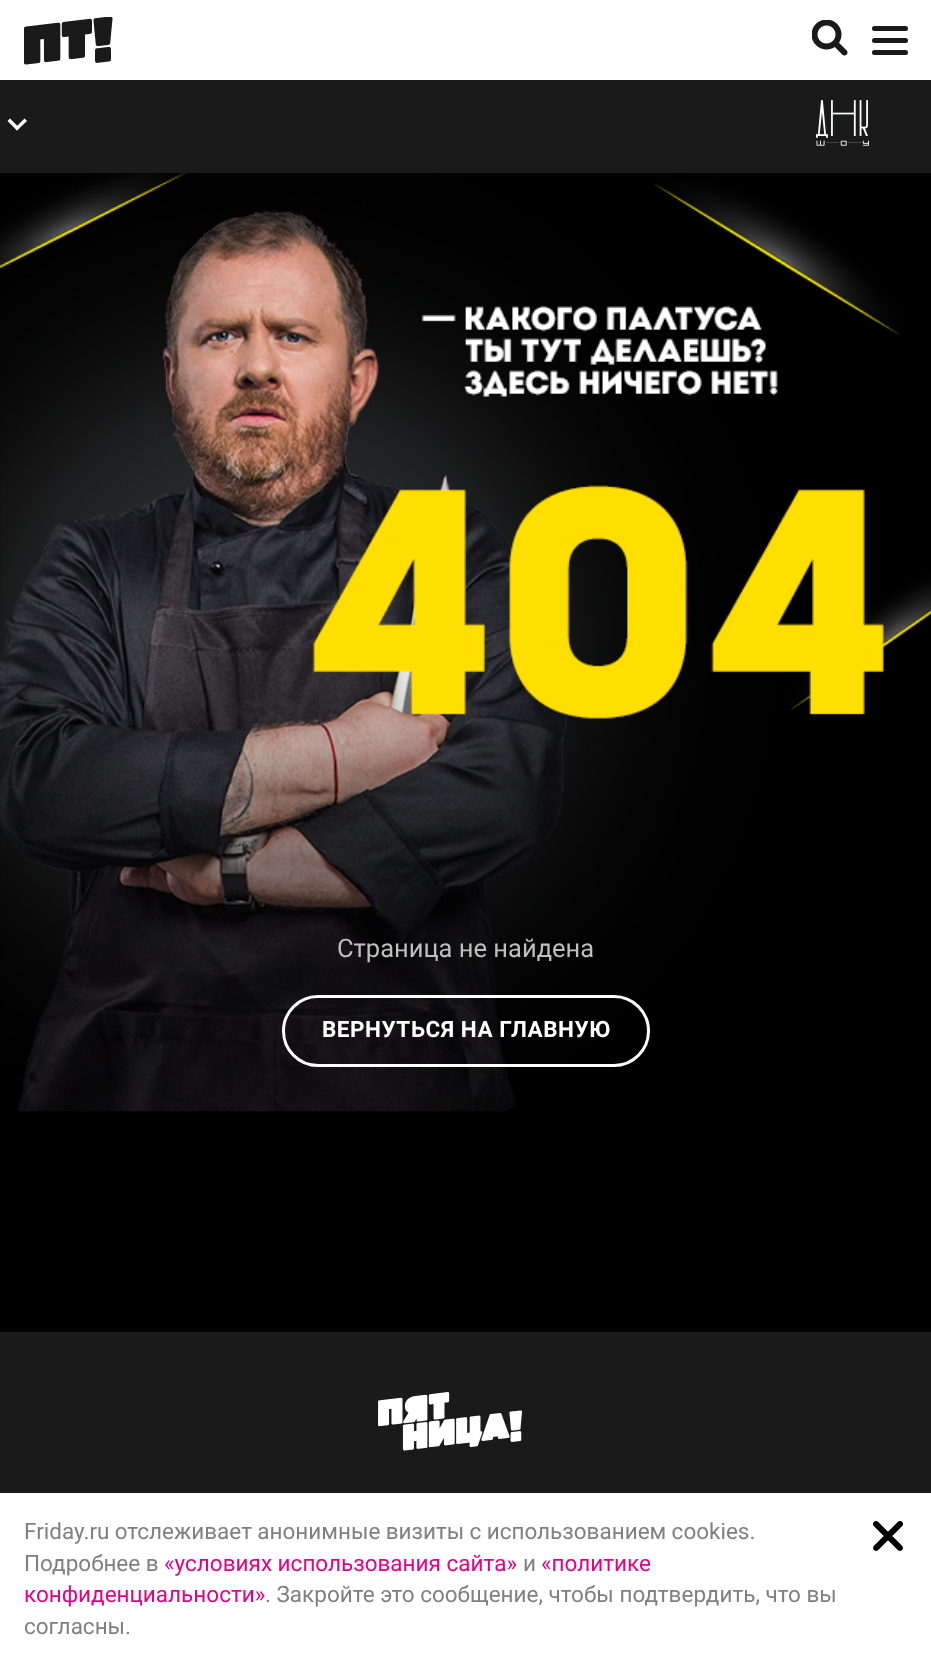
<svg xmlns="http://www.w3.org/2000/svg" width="931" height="1678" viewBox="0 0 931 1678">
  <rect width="100%" height="100%" fill="rgb(0,0,0)"/>
  <rect x="0" y="0" width="931" height="80" fill="rgb(255,255,255)"/>
  <image x="24" y="17" width="89" height="48" href="pic1.png"/>
  <image x="812" y="20" width="36" height="36" href="pic2.png"/>
  <rect x="872" y="26" width="36" height="5" rx="2.5" fill="rgb(26,26,26)"/>
  <rect x="872" y="38" width="36" height="5" rx="2.5" fill="rgb(26,26,26)"/>
  <rect x="872" y="50" width="36" height="5" rx="2.5" fill="rgb(26,26,26)"/>
  <rect x="0" y="80" width="931" height="93" fill="rgb(26,26,26)"/>
  <path d="M15 128L24.5 118.5L27 121L17 130.5Z" fill="rgb(255,255,255)"/>
  <path d="M7.5 121L10 118.5L19.5 128L17 130.5Z" fill="rgb(255,255,255)"/>
  <image x="816" y="100" width="53" height="46" href="pic3.png"/>
  <image x="0" y="173" width="931" height="939" href="pic4.png"/>
  <text x="337" y="957" font-family="Roboto" font-size="25.5" fill="rgb(191,191,191)">Cтраница не найдена</text>
  <rect x="283.5" y="996.5" width="365" height="69" rx="34.5" fill="none" stroke="rgb(255,255,255)" stroke-width="3"/>
  <text x="322" y="1037" font-family="Roboto" font-size="22.5" font-weight="bold" letter-spacing="0.5" fill="rgb(255,255,255)">ВЕРНУТЬСЯ НА ГЛАВНУЮ</text>
  <rect x="0" y="1332" width="931" height="161" fill="rgb(26,26,26)"/>
  <image x="378" y="1392" width="144" height="59" href="pic5.png"/>
  <rect x="0" y="1493" width="931" height="185" fill="rgb(255,255,255)"/>
  <g font-family="Roboto" font-size="22.5" fill="rgb(128,128,128)">
    <text>
      <tspan x="24" y="1539" word-spacing="-0.25">Friday.ru отслеживает анонимные визиты с использованием cookies.</tspan>
      <tspan x="24" y="1571">Подробнее в</tspan>
    </text>
  </g>
  <text x="164" y="1571" font-family="Roboto" font-size="22.5" fill="rgb(230,0,134)">«условиях использования сайта»</text>
  <text x="523" y="1571" font-family="Roboto" font-size="22.5" fill="rgb(128,128,128)">и</text>
  <g font-family="Roboto" font-size="22.5" fill="rgb(230,0,134)">
    <text x="541" y="1571">«политике</text>
    <text x="24" y="1602">конфиденциальности»</text>
  </g>
  <g font-family="Roboto" font-size="22.5" fill="rgb(128,128,128)">
    <text x="265" y="1602">. Закройте это сообщение, чтобы подтвердить, что вы</text>
    <text x="24" y="1634">согласны.</text>
  </g>
  <image x="873" y="1521" width="30" height="30" href="pic6.png"/>
</svg>
